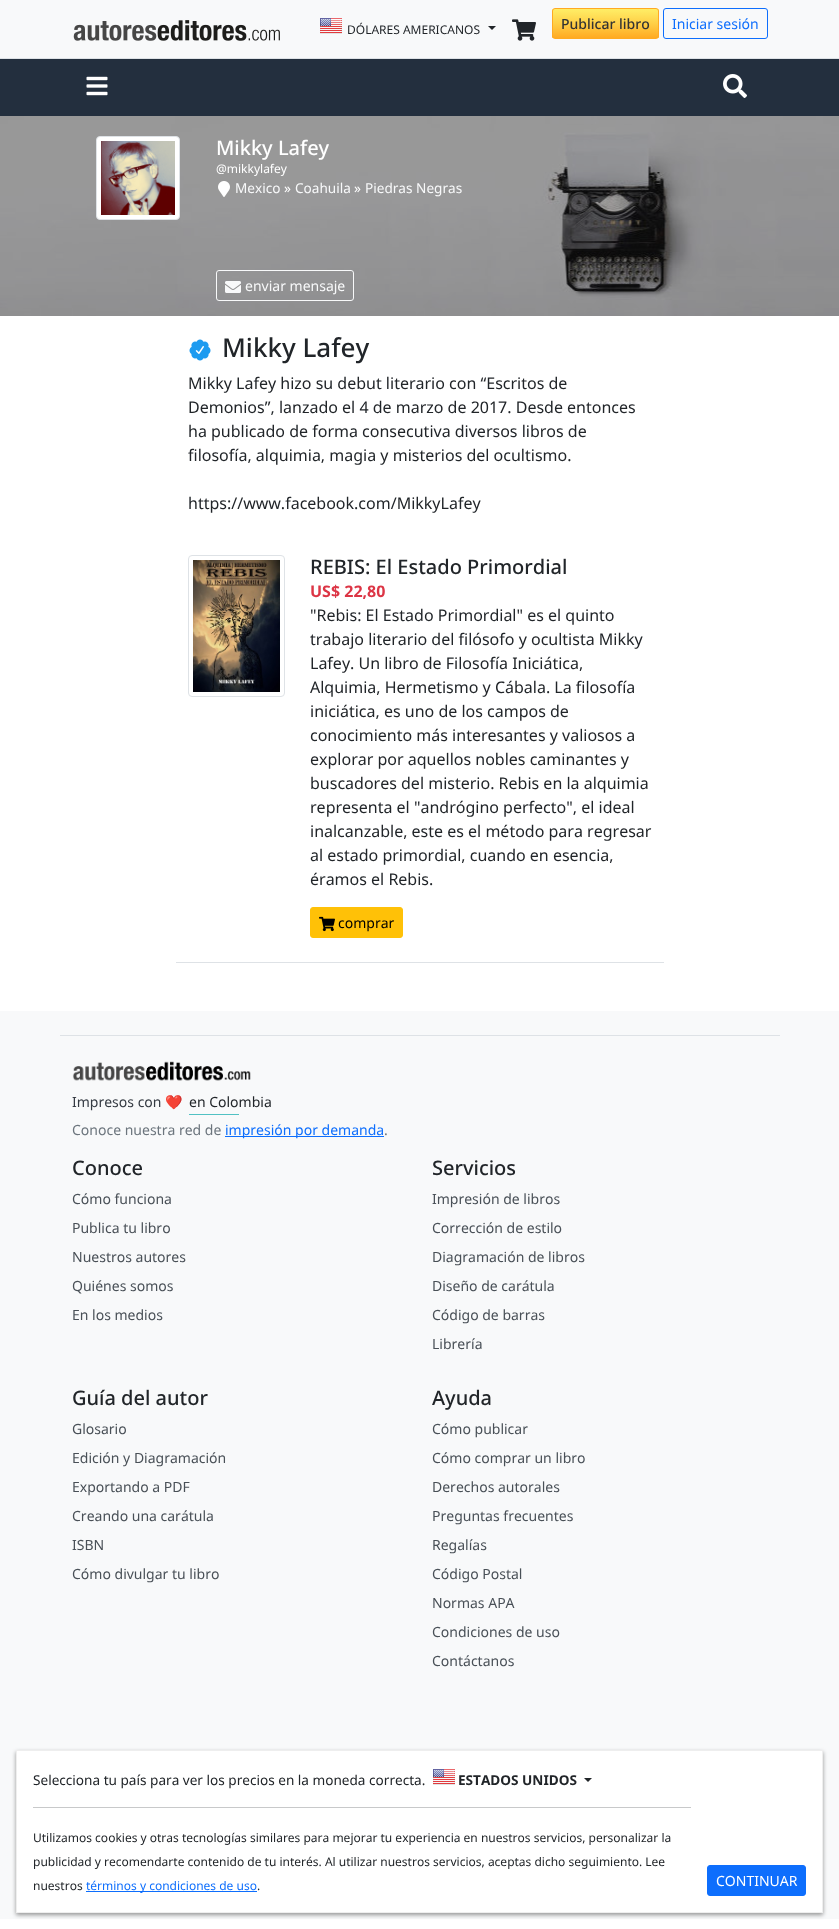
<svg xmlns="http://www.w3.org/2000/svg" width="839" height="1929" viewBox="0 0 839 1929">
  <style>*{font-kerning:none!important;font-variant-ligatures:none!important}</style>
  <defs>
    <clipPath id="clip1"><rect x="552" y="8" width="107" height="31" rx="3"/></clipPath>
    <linearGradient id="g1" gradientUnits="userSpaceOnUse" x1="606" y1="38" x2="606" y2="9"><stop offset="0" stop-color="rgb(255,170,34)"/><stop offset="0.5" stop-color="rgb(255,207,71)"/><stop offset="1" stop-color="rgb(255,238,102)"/></linearGradient>
  </defs>
  <rect width="100%" height="100%" fill="rgb(255,255,255)"/>
  <rect x="0" y="0" width="839" height="58" fill="rgb(248,249,250)"/>
  <rect x="0" y="58" width="839" height="1" fill="rgb(222,226,230)"/>
  <image x="73" y="20" width="207" height="21" href="pic1.png"/>
  <image x="320" y="18" width="22" height="16" href="pic2.png"/>
  <text x="347" y="34" font-family="Noto Sans" font-size="12" fill="rgb(33,37,41)">DÓLARES AMERICANOS</text>
  <path d="M488 26H496L492 30Z" fill="rgb(33,37,41)"/>
  <image x="512" y="19" width="24" height="22" href="pic3.png"/>
  <g clip-path="url(#clip1)">
    <rect x="552" y="9" width="107" height="29" fill="url(#g1)"/>
  </g>
  <rect x="552.5" y="8.5" width="106" height="30" rx="2.5" fill="none" stroke="rgb(255,170,34)"/>
  <text x="561" y="29" font-family="Noto Sans" font-size="14" font-weight="500" fill="rgb(51,51,51)">Publicar libro</text>
  <rect x="663.5" y="8.5" width="104" height="30" rx="2.5" fill="none" stroke="rgb(13,110,253)"/>
  <text x="672" y="29" font-family="Noto Sans" font-size="14" fill="rgb(13,110,253)">Iniciar sesión</text>
  <rect x="0" y="59" width="839" height="57" fill="rgb(35,47,62)"/>
  <image x="86" y="76" width="22" height="20" href="pic4.png"/>
  <image x="723" y="74" width="24" height="24" href="pic5.png"/>
  <image x="0" y="116" width="839" height="200" href="pic6.png"/>
  <rect x="96.5" y="136.5" width="83" height="83" rx="3.5" fill="rgb(255,255,255)" stroke="rgb(222,226,230)"/>
  <image x="101" y="141" width="74" height="74" href="pic7.png"/>
  <text x="216" y="155" font-family="Noto Sans" font-size="20" font-weight="500" fill="rgb(255,255,255)">Mikky Lafey</text>
  <text x="216" y="173" font-family="Noto Sans" font-size="12" fill="rgb(255,255,255)">@mikkylafey</text>
  <image x="218" y="181" width="12" height="16" href="pic8.png"/>
  <text x="235" y="193" font-family="Noto Sans" font-size="13.6" fill="rgb(248,249,250)">Mexico</text>
  <text x="284" y="193" font-family="Noto Sans" font-size="13.6" fill="rgb(255,255,255)">»</text>
  <text x="295" y="193" font-family="Noto Sans" font-size="13.6" fill="rgb(248,249,250)">Coahuila</text>
  <text x="354" y="193" font-family="Noto Sans" font-size="13.6" fill="rgb(255,255,255)">»</text>
  <text x="365" y="193" font-family="Noto Sans" font-size="13.6" fill="rgb(248,249,250)">Piedras Negras</text>
  <rect x="216.5" y="270.5" width="137" height="30" rx="2.5" fill="none" stroke="rgb(248,249,250)"/>
  <image x="225" y="281" width="16" height="12" href="pic9.png"/>
  <text x="245" y="291" font-family="Noto Sans" font-size="14" fill="rgb(248,249,250)">enviar mensaje</text>
  <image x="189" y="339" width="22" height="22" href="pic10.png"/>
  <text x="222" y="357" font-family="Noto Sans" font-size="26" font-weight="500" fill="rgb(33,37,41)">Mikky Lafey</text>
  <g font-family="Noto Sans" font-size="16" fill="rgb(33,37,41)">
    <text>
      <tspan x="188" y="389">Mikky Lafey hizo su debut literario con “Escritos de</tspan>
      <tspan x="188" y="413">Demonios”, lanzado el 4 de marzo de 2017. Desde entonces</tspan>
      <tspan x="188" y="437">ha publicado de forma consecutiva diversos libros de</tspan>
      <tspan x="188" y="461">filosofía, alquimia, magia y misterios del ocultismo.</tspan>
    </text>
    <text x="188" y="509">https://www.facebook.com/MikkyLafey</text>
  </g>
  <rect x="176" y="962" width="488" height="1" fill="rgb(222,226,230)"/>
  <rect x="188.5" y="555.5" width="96" height="141" rx="3.5" fill="none" stroke="rgb(222,226,230)"/>
  <image x="193" y="560" width="87" height="132" href="pic11.png"/>
  <text x="310" y="574" font-family="Noto Sans" font-size="20" font-weight="500" fill="rgb(33,37,41)">REBIS: El Estado Primordial</text>
  <text x="310" y="597" font-family="Noto Sans" font-size="16" font-weight="bold" fill="rgb(220,53,69)">US$ 22,80</text>
  <g font-family="Noto Sans" font-size="16" fill="rgb(33,37,41)">
    <text>
      <tspan x="310" y="621">"Rebis: El Estado Primordial" es el quinto</tspan>
      <tspan x="310" y="645">trabajo literario del filósofo y ocultista Mikky</tspan>
      <tspan x="310" y="669">Lafey. Un libro de Filosofía Iniciática,</tspan>
      <tspan x="310" y="693">Alquimia, Hermetismo y Cábala. La filosofía</tspan>
      <tspan x="310" y="717">iniciática, es uno de los campos de</tspan>
      <tspan x="310" y="741">conocimiento más interesantes y valiosos a</tspan>
      <tspan x="310" y="765">explorar por aquellos nobles caminantes y</tspan>
      <tspan x="310" y="789">buscadores del misterio. Rebis en la alquimia</tspan>
      <tspan x="310" y="813">representa el "andrógino perfecto", el ideal</tspan>
      <tspan x="310" y="837">inalcanzable, este es el método para regresar</tspan>
      <tspan x="310" y="861">al estado primordial, cuando en esencia,</tspan>
      <tspan x="310" y="885">éramos el Rebis.</tspan>
    </text>
  </g>
  <rect x="310.5" y="907.5" width="92" height="30" rx="2.5" fill="rgb(255,193,7)" stroke="rgb(255,193,7)"/>
  <image x="319" y="916" width="16" height="16" href="pic12.png"/>
  <text x="338" y="928" font-family="Noto Sans" font-size="14" fill="rgb(0,0,0)">comprar</text>
  <rect x="0" y="1011" width="839" height="908" fill="rgb(248,249,250)"/>
  <rect x="60" y="1035" width="720" height="1" fill="rgb(222,226,230)"/>
  <image x="72" y="1061" width="179" height="20" href="pic13.png"/>
  <text x="72" y="1107" font-family="Noto Sans" font-size="14" fill="rgb(52,58,66)">Impresos con</text>
  <text x="165" y="1107" font-family="Noto Color Emoji" font-size="14" fill="rgb(52,58,66)">❤</text>
  <text x="189" y="1107" font-family="Noto Sans" font-size="14" fill="rgb(33,37,41)">en Colombia</text>
  <rect x="189" y="1114" width="50" height="1" fill="rgb(81,193,195)"/>
  <text x="72" y="1135" font-family="Noto Sans" font-size="14" fill="rgb(108,117,125)">Conoce nuestra red de</text>
  <rect x="225" y="1136" width="159" height="1" fill="rgb(13,110,253)"/>
  <text x="225" y="1135" font-family="Noto Sans" font-size="14" fill="rgb(13,110,253)">impresión por demanda</text>
  <text x="384" y="1135" font-family="Noto Sans" font-size="14" fill="rgb(108,117,125)">.</text>
  <text x="72" y="1175" font-family="Noto Sans" font-size="20" font-weight="500" fill="rgb(33,37,41)">Conoce</text>
  <g font-family="Noto Sans" font-size="14" fill="rgb(73,80,87)">
    <text x="72" y="1204">Cómo funciona</text>
    <text x="72" y="1233">Publica tu libro</text>
    <text x="72" y="1262">Nuestros autores</text>
    <text x="72" y="1291">Quiénes somos</text>
    <text x="72" y="1320">En los medios</text>
  </g>
  <text x="432" y="1175" font-family="Noto Sans" font-size="20" font-weight="500" fill="rgb(33,37,41)">Servicios</text>
  <g font-family="Noto Sans" font-size="14" fill="rgb(73,80,87)">
    <text x="432" y="1204">Impresión de libros</text>
    <text x="432" y="1233">Corrección de estilo</text>
    <text x="432" y="1262">Diagramación de libros</text>
    <text x="432" y="1291">Diseño de carátula</text>
    <text x="432" y="1320">Código de barras</text>
    <text x="432" y="1349">Librería</text>
  </g>
  <text x="72" y="1405" font-family="Noto Sans" font-size="20" font-weight="500" fill="rgb(33,37,41)">Guía del autor</text>
  <g font-family="Noto Sans" font-size="14" fill="rgb(73,80,87)">
    <text x="72" y="1434">Glosario</text>
    <text x="72" y="1463">Edición y Diagramación</text>
    <text x="72" y="1492">Exportando a PDF</text>
    <text x="72" y="1521">Creando una carátula</text>
    <text x="72" y="1550">ISBN</text>
    <text x="72" y="1579">Cómo divulgar tu libro</text>
  </g>
  <text x="432" y="1405" font-family="Noto Sans" font-size="20" font-weight="500" fill="rgb(33,37,41)">Ayuda</text>
  <g font-family="Noto Sans" font-size="14" fill="rgb(73,80,87)">
    <text x="432" y="1434">Cómo publicar</text>
    <text x="432" y="1463">Cómo comprar un libro</text>
    <text x="432" y="1492">Derechos autorales</text>
    <text x="432" y="1521">Preguntas frecuentes</text>
    <text x="432" y="1550">Regalías</text>
    <text x="432" y="1579">Código Postal</text>
    <text x="432" y="1608">Normas APA</text>
    <text x="432" y="1637">Condiciones de uso</text>
    <text x="432" y="1666">Contáctanos</text>
  </g>
  <rect x="16" y="1752" width="807" height="163" fill="rgba(0,0,0,0.4)" filter="blur(2px)"/>
  <rect x="16.5" y="1750.5" width="806" height="162" fill="rgb(255,255,255)" stroke="rgb(238,238,238)"/>
  <text x="33" y="1785" font-family="Noto Sans" font-size="13.6" fill="rgb(33,37,41)">Selecciona tu país para ver los precios en la moneda correcta.</text>
  <image x="433" y="1769" width="22" height="16" href="pic2.png"/>
  <text x="458" y="1785" font-family="Noto Sans" font-size="13.6" font-weight="bold" fill="rgb(33,37,41)">ESTADOS UNIDOS</text>
  <path d="M584 1778H592L588 1782Z" fill="rgb(33,37,41)"/>
  <rect x="33" y="1807" width="658" height="1" fill="rgb(200,201,202)"/>
  <g font-family="Noto Sans" font-size="12" fill="rgb(33,37,41)">
    <text x="33" y="1842">Utilizamos cookies y otras tecnologías similares para mejorar tu experiencia en nuestros servicios, personalizar la</text>
    <text x="33" y="1866">publicidad y recomendarte contenido de tu interés. Al utilizar nuestros servicios, aceptas dicho seguimiento. Lee</text>
    <text x="33" y="1890">nuestros</text>
  </g>
  <rect x="86" y="1891" width="171" height="1" fill="rgb(13,110,253)"/>
  <text x="86" y="1890" font-family="Noto Sans" font-size="12" fill="rgb(13,110,253)">términos y condiciones de uso</text>
  <text x="257" y="1890" font-family="Noto Sans" font-size="12" fill="rgb(33,37,41)">.</text>
  <rect x="707.5" y="1865.5" width="98" height="30" rx="2.5" fill="rgb(13,110,253)" stroke="rgb(13,110,253)"/>
  <text x="716" y="1886" font-family="Noto Sans" font-size="14" fill="rgb(255,255,255)">CONTINUAR</text>
</svg>
